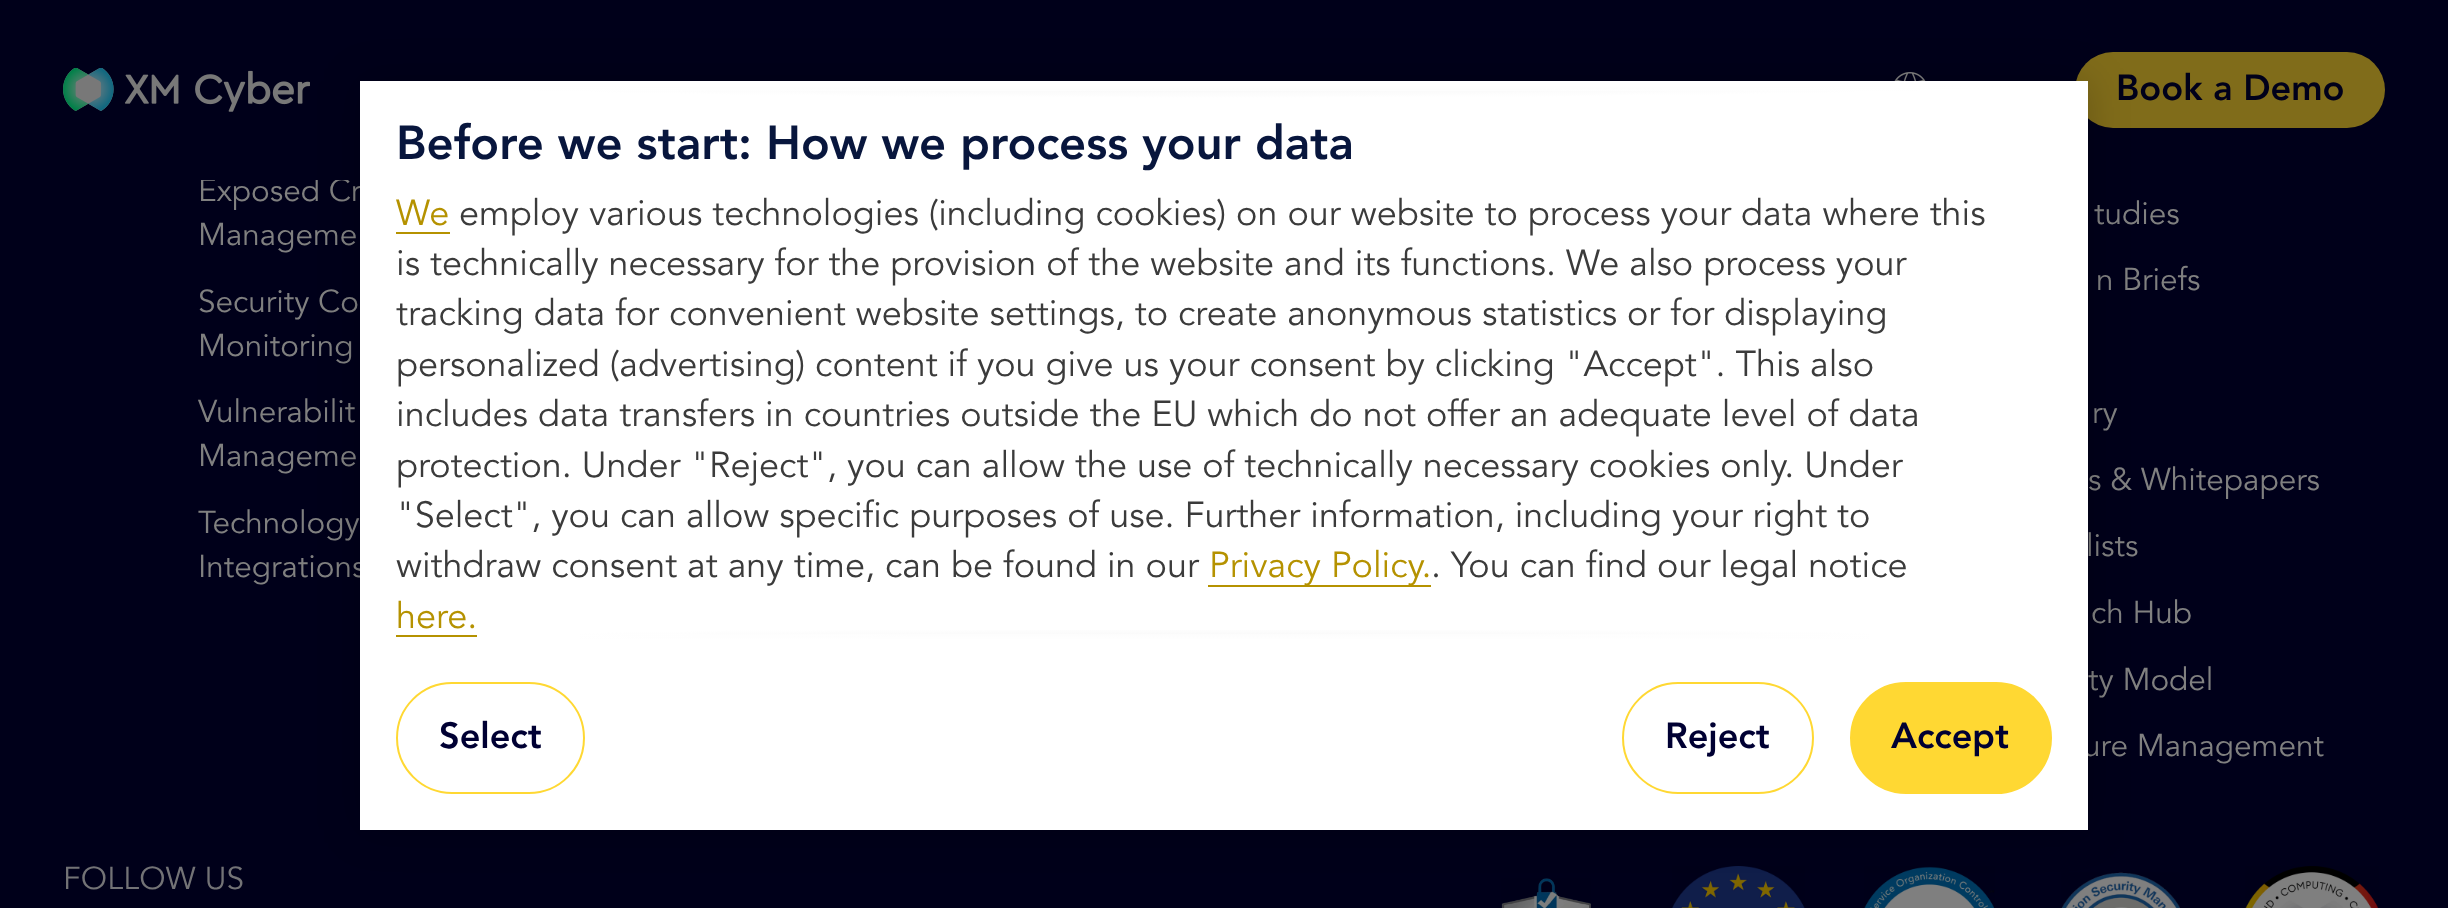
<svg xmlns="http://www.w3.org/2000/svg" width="2448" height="908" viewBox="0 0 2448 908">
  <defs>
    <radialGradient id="g1" gradientUnits="userSpaceOnUse" cx="0" cy="0" r="1" gradientTransform="matrix(864 0 0 18 1224 645)"><stop offset="0" stop-color="rgb(242,242,242)"/><stop offset="1" stop-color="rgb(255,255,255)"/></radialGradient>
    <radialGradient id="g2" gradientUnits="userSpaceOnUse" cx="0" cy="0" r="1" gradientTransform="matrix(864 0 0 18 1224 80)"><stop offset="0" stop-color="rgb(242,242,242)"/><stop offset="1" stop-color="rgb(255,255,255)"/></radialGradient>
    <linearGradient id="g3" gradientUnits="userSpaceOnUse" x1="1224" y1="627" x2="1224" y2="645"><stop offset="0" stop-color="rgb(255,255,255)" stop-opacity="0"/><stop offset="0.7" stop-color="rgb(255,255,255)"/></linearGradient>
    <linearGradient id="g4" gradientUnits="userSpaceOnUse" x1="1224" y1="80" x2="1224" y2="98"><stop offset="0.3" stop-color="rgb(255,255,255)"/><stop offset="1" stop-color="rgb(255,255,255)" stop-opacity="0"/></linearGradient>
  </defs>
  <rect width="100%" height="100%" fill="rgb(0,0,26)"/>
  <text x="198" y="201" font-family="Avenir" font-size="31.5" fill="rgb(128,128,128)">Exposed Cr</text>
  <rect x="201" y="177" width="147" height="3" fill="rgb(0,0,26)"/>
  <image x="63" y="68" width="247" height="44" href="pic1.png"/>
  <image x="1894" y="72" width="32" height="9" href="pic2.png"/>
  <rect x="2075" y="52" width="310" height="76" rx="38" fill="rgb(128,108,26)"/>
  <text x="2116" y="100" font-family="Avenir" font-size="36" font-weight="900" fill="rgb(0,0,26)">Book a Demo</text>
  <g font-family="Avenir" font-size="31.5" fill="rgb(128,128,128)">
    <text x="198" y="245">Manageme</text>
    <text>
      <tspan x="198" y="312">Security Co</tspan>
      <tspan x="198" y="356">Monitoring</tspan>
    </text>
    <text>
      <tspan x="198" y="422">Vulnerabilit</tspan>
      <tspan x="198" y="466">Manageme</tspan>
    </text>
    <text>
      <tspan x="198" y="533">Technology</tspan>
      <tspan x="198" y="577">Integrations</tspan>
    </text>
    <text x="2094" y="224">tudies</text>
    <text x="2096" y="290">n Briefs</text>
    <text x="2092" y="423">ry</text>
    <text x="2088" y="490">s &amp; Whitepapers</text>
    <text x="2086" y="556">lists</text>
    <text x="2091" y="623">ch Hub</text>
    <text x="2088" y="690">ty Model</text>
    <text x="2083" y="756">ure Management</text>
  </g>
  <text x="63" y="889" font-family="Avenir" font-size="31.5" letter-spacing="0.25" fill="rgb(115,115,118)">FOLLOW US</text>
  <image x="1501" y="878" width="90" height="30" href="pic3.png"/>
  <image x="1672" y="866" width="133" height="42" href="pic4.png"/>
  <image x="1864" y="866" width="131" height="42" href="pic5.png"/>
  <image x="2061" y="872" width="119" height="36" href="pic6.png"/>
  <image x="2245" y="866" width="134" height="42" href="pic7.png"/>
  <rect x="360" y="81" width="1728" height="749" rx="6" fill="rgba(0,0,0,0.2)" filter="blur(20px)"/>
  <rect x="360" y="99" width="1728" height="731" fill="rgb(255,255,255)"/>
  <rect x="579" y="630" width="1290" height="10" fill="url(#g1)"/>
  <rect x="360" y="85" width="1728" height="14" fill="url(#g2)"/>
  <rect x="579" y="634" width="1290" height="6" fill="url(#g3)"/>
  <rect x="360" y="81" width="1728" height="10" fill="url(#g4)"/>
  <text x="396" y="159" font-family="Avenir" font-size="47.25" font-weight="900" fill="rgb(8,22,61)">Before we start: How we process your data</text>
  <text x="396" y="225" font-family="Avenir" font-size="36" fill="rgb(181,146,0)">We</text>
  <rect x="396" y="232" width="54" height="2" fill="rgb(181,146,0)"/>
  <g font-family="Avenir" font-size="36" fill="rgb(59,59,59)">
    <text x="459" y="225">employ various technologies (including cookies) on our website to process your data where this</text>
    <text>
      <tspan x="396" y="275">is technically necessary for the provision of the website and its functions. We also process your</tspan>
      <tspan x="396" y="325">tracking data for convenient website settings, to create anonymous statistics or for displaying</tspan>
      <tspan x="396" y="376">personalized (advertising) content if you give us your consent by clicking "Accept". This also</tspan>
      <tspan x="396" y="426">includes data transfers in countries outside the EU which do not offer an adequate level of data</tspan>
      <tspan x="396" y="477">protection. Under "Reject", you can allow the use of technically necessary cookies only. Under</tspan>
      <tspan x="396" y="527">"Select", you can allow specific purposes of use. Further information, including your right to</tspan>
      <tspan x="396" y="577">withdraw consent at any time, can be found in our</tspan>
    </text>
  </g>
  <rect x="1208" y="585" width="223" height="2" fill="rgb(181,146,0)"/>
  <text x="1209" y="577" font-family="Avenir" font-size="36" fill="rgb(181,146,0)">Privacy Policy.</text>
  <text x="1431" y="577" font-family="Avenir" font-size="36" fill="rgb(59,59,59)">. You can find our legal notice</text>
  <text x="396" y="628" font-family="Avenir" font-size="36" fill="rgb(181,146,0)">here.</text>
  <rect x="396" y="635" width="81" height="2" fill="rgb(181,146,0)"/>
  <rect x="397" y="683" width="187" height="110" rx="55" fill="none" stroke="rgb(255,216,51)" stroke-width="2"/>
  <text x="439" y="748" font-family="Avenir" font-size="36" font-weight="900" fill="rgb(0,0,51)">Select</text>
  <rect x="1623" y="683" width="190" height="110" rx="55" fill="none" stroke="rgb(255,216,51)" stroke-width="2"/>
  <text x="1665" y="748" font-family="Avenir" font-size="36" font-weight="900" fill="rgb(0,0,51)">Reject</text>
  <rect x="1851" y="683" width="200" height="110" rx="55" fill="rgb(255,216,51)" stroke="rgb(255,216,51)" stroke-width="2"/>
  <text x="1891" y="748" font-family="Avenir" font-size="36" font-weight="900" fill="rgb(0,0,51)">Accept</text>
</svg>
